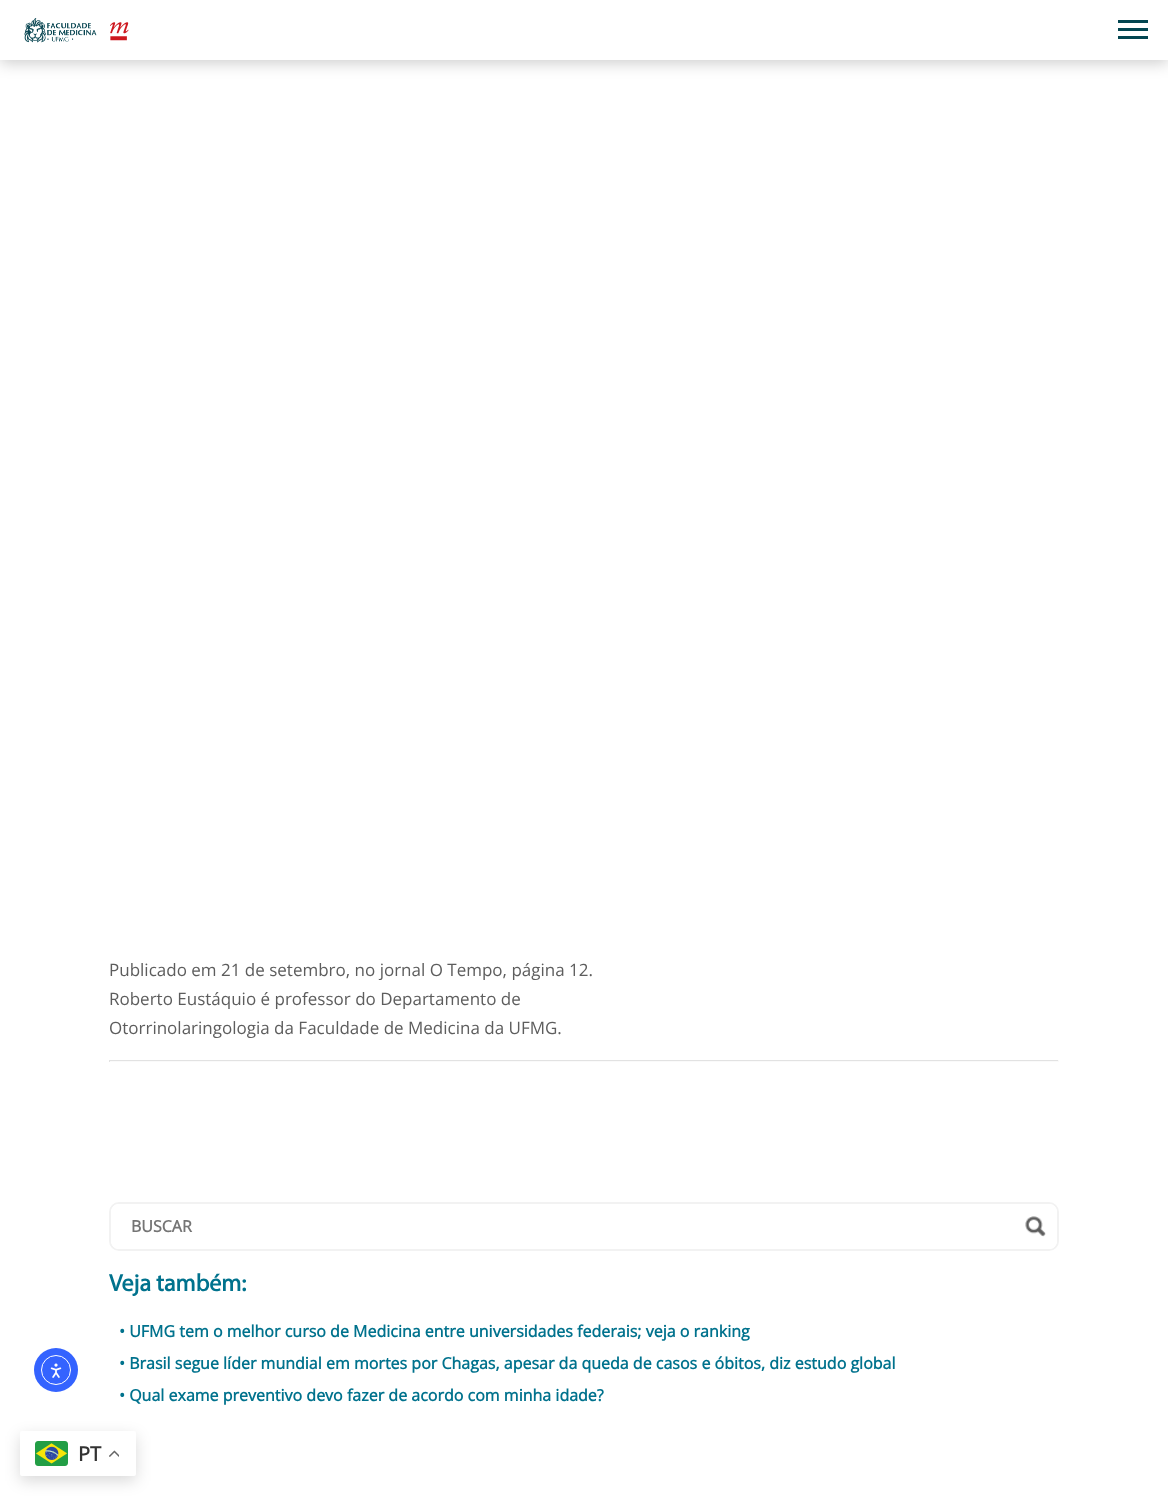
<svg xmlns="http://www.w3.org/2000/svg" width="1168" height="1496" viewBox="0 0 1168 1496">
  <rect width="100%" height="100%" fill="rgb(255,255,255)"/>
  <rect x="0" y="3" width="1168" height="60" fill="rgba(0,0,0,0.2)" filter="blur(7.5px)"/>
  <rect x="0" y="0" width="1168" height="60" fill="rgb(255,255,255)"/>
  <image x="24" y="18" width="73" height="25" href="pic1.png"/>
  <image x="110" y="22" width="19" height="19" href="pic2.png"/>
  <rect x="1118" y="20" width="30" height="3" fill="rgb(3,70,81)"/>
  <rect x="1118" y="36" width="30" height="3" fill="rgb(3,70,81)"/>
  <rect x="1118" y="28" width="30" height="3" fill="rgb(3,70,81)"/>
  <circle cx="56" cy="1370" r="22" fill="rgb(52,99,255)"/>
  <circle cx="56" cy="1370" r="14.5" fill="none" stroke="rgb(255,255,255)"/>
  <image x="50" y="1363" width="12" height="15" href="pic3.png"/>
  <g font-family="Open Sans" font-size="17" fill="rgb(93,93,93)">
    <text>
      <tspan x="109" y="976">Publicado em 21 de setembro, no jornal O Tempo, página 12.</tspan>
      <tspan x="109" y="1005">Roberto Eustáquio é professor do Departamento de</tspan>
      <tspan x="109" y="1034">Otorrinolaringologia da Faculdade de Medicina da UFMG.</tspan>
    </text>
  </g>
  <rect x="109" y="1060" width="950" height="1" fill="rgb(226,226,226)"/>
  <rect x="1058" y="1060" width="1" height="2" fill="rgb(250,250,250)"/>
  <rect x="109" y="1061" width="950" height="1" fill="rgb(250,250,250)"/>
  <rect x="109" y="1060" width="1" height="2" fill="rgb(226,226,226)"/>
  <rect x="110" y="1203" width="948" height="47" rx="9" fill="none" stroke="rgb(242,242,242)" stroke-width="2"/>
  <path d="M119 1204H1012V1249H119C114.5 1249 111 1245.5 111 1241V1212C111 1207.5 114.5 1204 119 1204Z" fill="rgb(255,255,255)"/>
  <text x="131" y="1232" font-family="Open Sans" font-size="16" font-weight="bold" fill="rgb(117,117,117)">BUSCAR</text>
  <path d="M1012 1204H1049C1053.5 1204 1057 1207.5 1057 1212V1241C1057 1245.5 1053.5 1249 1049 1249H1012Z" fill="rgb(255,255,255)"/>
  <image x="1025" y="1216" width="21" height="21" href="pic4.png"/>
  <text x="109" y="1291" font-family="Myriad" font-size="24" font-weight="bold" fill="rgb(0,114,141)">Veja também:</text>
  <g font-family="Open Sans" font-size="16" font-weight="bold" fill="rgb(0,114,141)">
    <text x="119" y="1337">• UFMG tem o melhor curso de Medicina entre universidades federais; veja o ranking</text>
    <text x="119" y="1369">• Brasil segue líder mundial em mortes por Chagas, apesar da queda de casos e óbitos, diz estudo global</text>
    <text x="119" y="1401">• Qual exame preventivo devo fazer de acordo com minha idade?</text>
  </g>
  <rect x="20" y="1436" width="116" height="45" rx="2" fill="rgba(0,0,0,0.15)" filter="blur(7.5px)"/>
  <rect x="20" y="1431" width="116" height="45" rx="2" fill="rgb(255,255,255)"/>
  <image x="35" y="1441" width="33" height="25" href="pic5.png"/>
  <text x="78" y="1461" font-family="Open Sans" font-size="20" font-weight="bold" fill="rgb(51,51,51)">PT</text>
  <image x="109" y="1450" width="10" height="7" href="pic6.png"/>
</svg>
